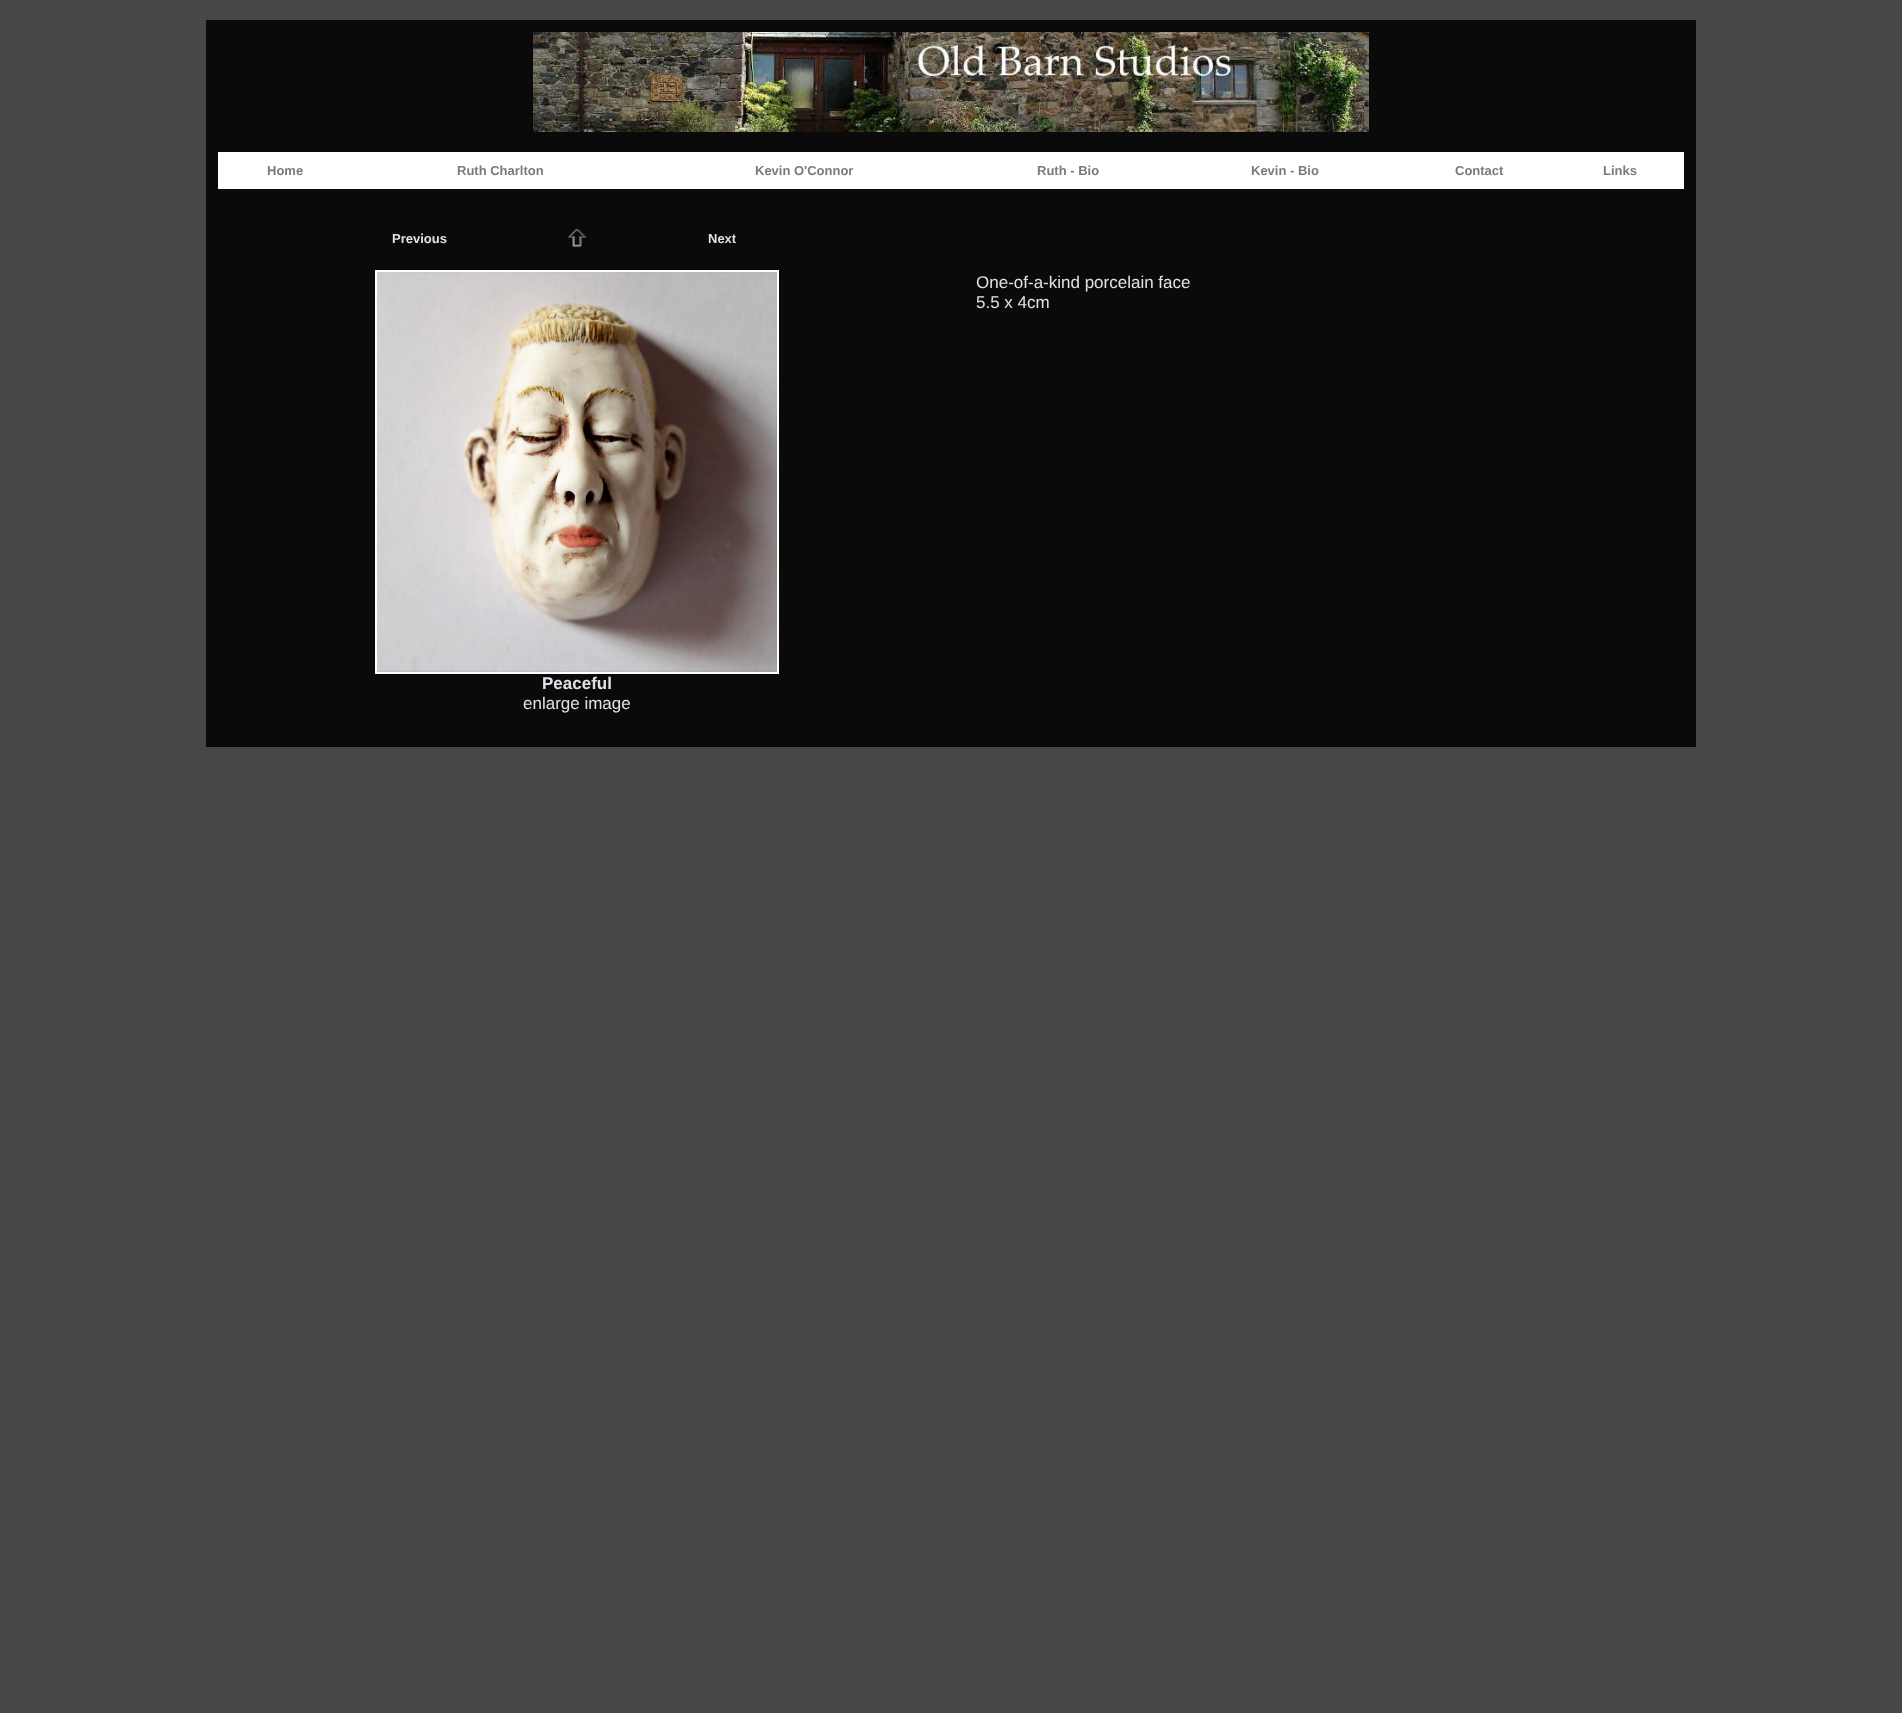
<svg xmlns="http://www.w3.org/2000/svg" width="1902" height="1713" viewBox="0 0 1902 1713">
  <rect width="100%" height="100%" fill="rgb(71,71,71)"/>
  <rect x="206" y="20" width="1490" height="727" fill="rgb(10,10,10)"/>
  <image x="533" y="32" width="836" height="100" href="pic1.png"/>
  <rect x="218" y="152" width="1466" height="37" fill="rgb(255,255,255)"/>
  <g font-family="Liberation Sans" font-size="13" font-weight="bold" fill="rgb(120,122,125)">
    <text x="267" y="175">Home</text>
    <text x="457" y="175">Ruth Charlton</text>
    <text x="755" y="175">Kevin O'Connor</text>
    <text x="1037" y="175">Ruth - Bio</text>
    <text x="1251" y="175">Kevin - Bio</text>
    <text x="1455" y="175">Contact</text>
    <text x="1603" y="175">Links</text>
  </g>
  <text x="392" y="243" font-family="Liberation Sans" font-size="13" font-weight="bold" fill="rgb(223,226,232)">Previous</text>
  <image x="568" y="228" width="19" height="20" href="pic2.png"/>
  <text x="708" y="243" font-family="Liberation Sans" font-size="13" font-weight="bold" fill="rgb(223,226,232)">Next</text>
  <rect x="376" y="271" width="402" height="402" fill="none" stroke="rgb(255,255,255)" stroke-width="2"/>
  <image x="377" y="272" width="400" height="400" href="pic3.png"/>
  <text x="542" y="689" font-family="Liberation Sans" font-size="17" font-weight="bold" fill="rgb(223,226,232)">Peaceful</text>
  <g font-family="Liberation Sans" font-size="17" fill="rgb(223,226,232)">
    <text x="523" y="709">enlarge image</text>
    <text>
      <tspan x="976" y="288">One-of-a-kind porcelain face</tspan>
      <tspan x="976" y="308">5.5 x 4cm</tspan>
    </text>
  </g>
</svg>
